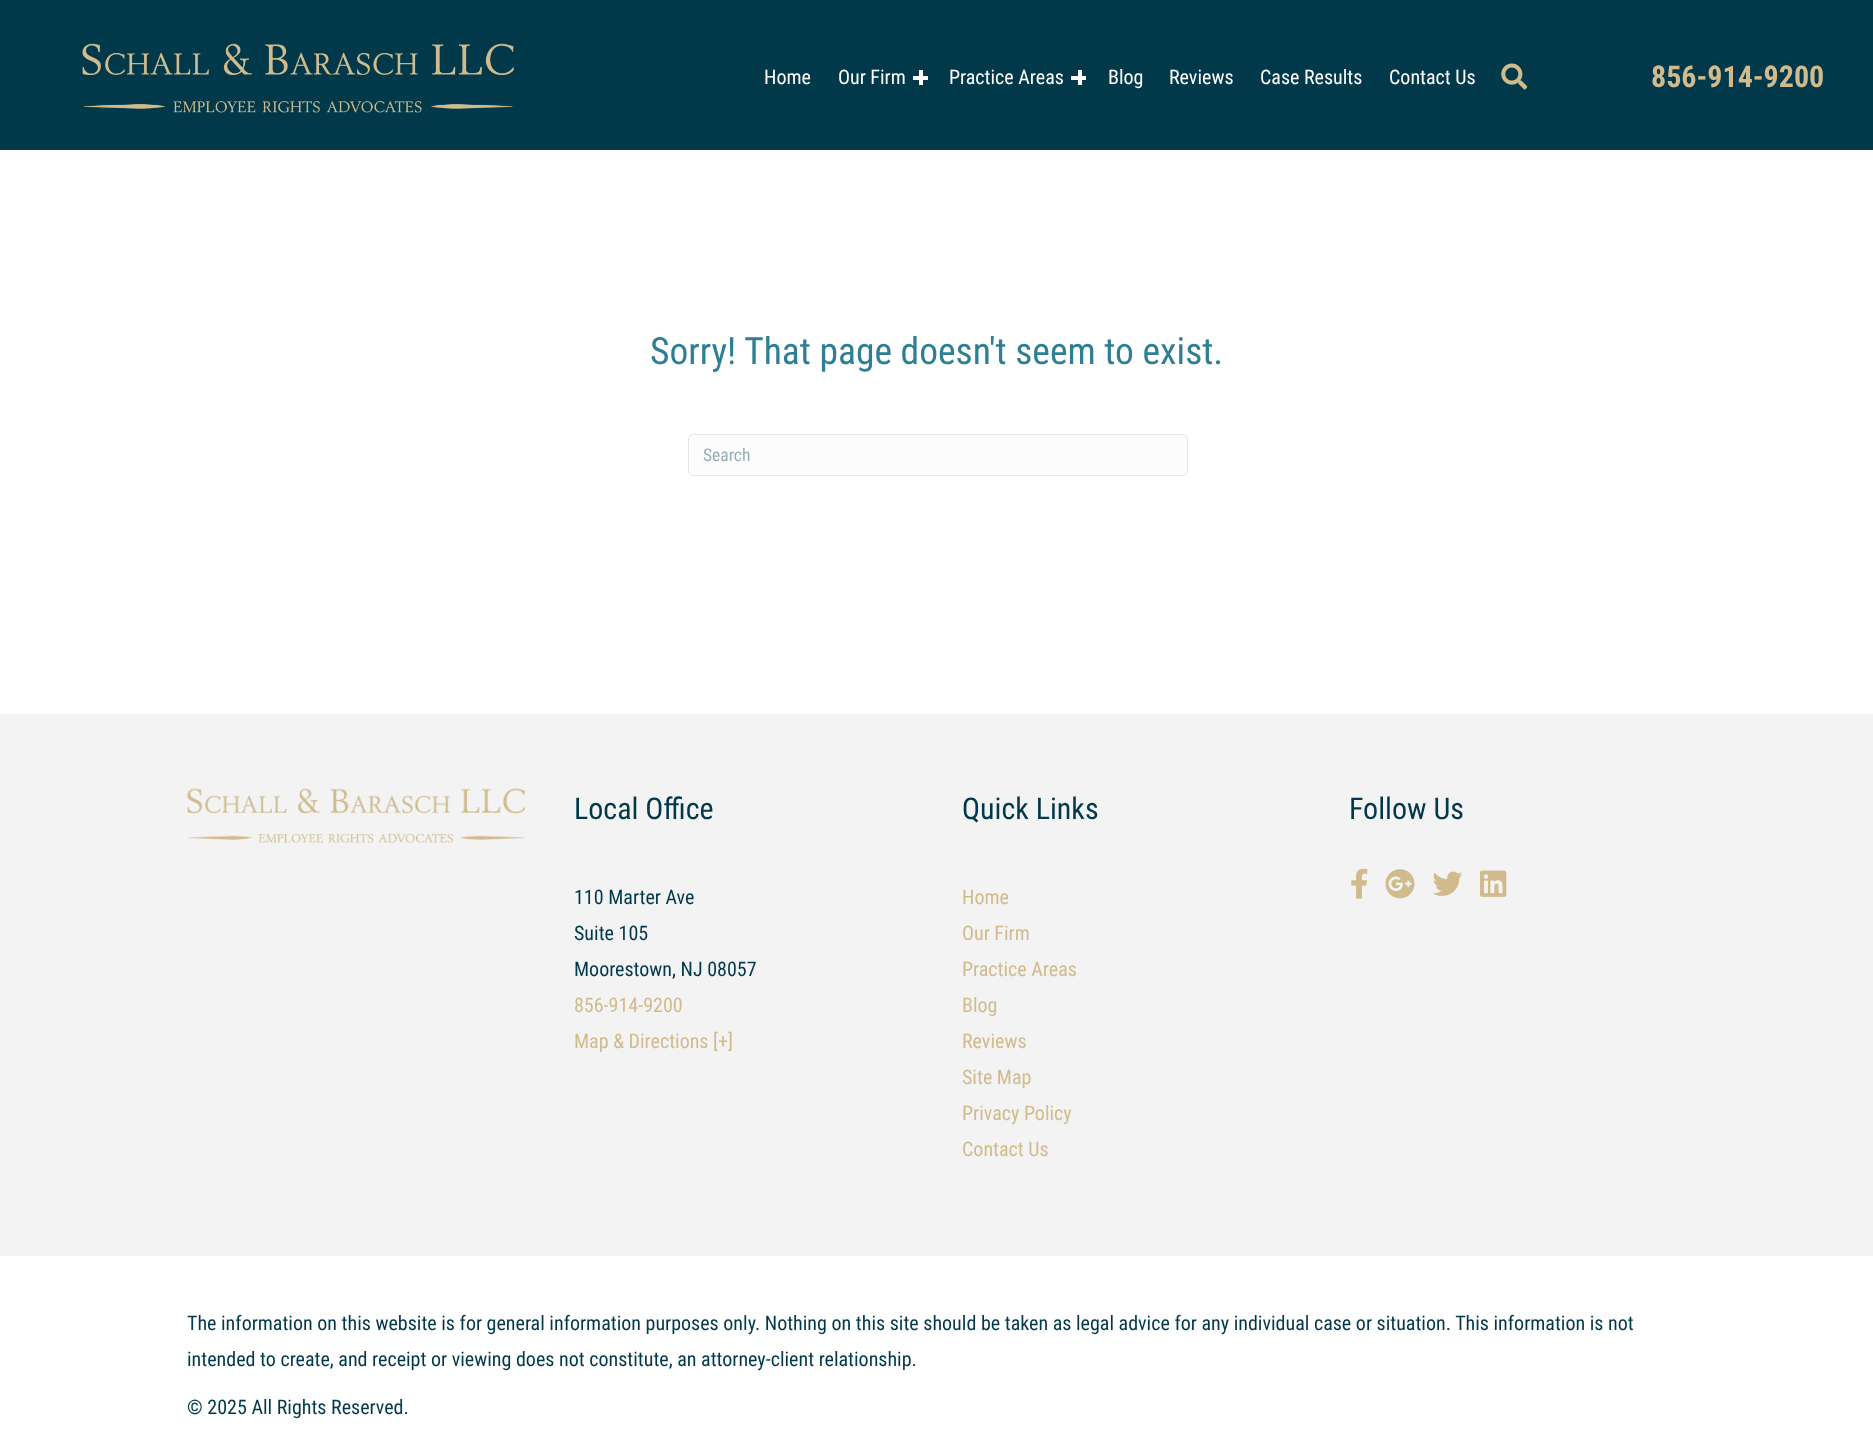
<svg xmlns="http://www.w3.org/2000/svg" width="1873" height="1451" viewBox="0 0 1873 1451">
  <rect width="100%" height="100%" fill="rgb(243,243,244)"/>
  <rect x="0" y="0" width="1873" height="150" fill="rgb(1,56,74)"/>
  <image x="82" y="43" width="432" height="70" href="pic1.png"/>
  <g font-family="Roboto Condensed" font-size="20" fill="rgb(255,255,255)">
    <text x="764" y="84">Home</text>
    <text x="838" y="84">Our Firm</text>
  </g>
  <rect x="913" y="76" width="15" height="4" fill="rgb(255,255,255)"/>
  <rect x="919" y="70" width="4" height="15" fill="rgb(255,255,255)"/>
  <text x="949" y="84" font-family="Roboto Condensed" font-size="20" fill="rgb(255,255,255)">Practice Areas</text>
  <rect x="1071" y="76" width="15" height="4" fill="rgb(255,255,255)"/>
  <rect x="1078" y="70" width="4" height="15" fill="rgb(255,255,255)"/>
  <g font-family="Roboto Condensed" font-size="20" fill="rgb(255,255,255)">
    <text x="1108" y="84">Blog</text>
    <text x="1169" y="84">Reviews</text>
    <text x="1260" y="84">Case Results</text>
    <text x="1389" y="84">Contact Us</text>
  </g>
  <image x="1501" y="63" width="27" height="27" href="pic2.png"/>
  <text x="1651" y="87" font-family="Roboto Condensed" font-size="30" font-weight="bold" fill="rgb(209,187,140)">856-914-9200</text>
  <rect x="0" y="150" width="1873" height="564" fill="rgb(255,255,255)"/>
  <text x="650" y="364" font-family="Roboto Condensed" font-size="37.5" fill="rgb(47,127,148)">Sorry! That page doesn't seem to exist.</text>
  <rect x="688.5" y="434.5" width="499" height="41" rx="4.5" fill="rgb(252,252,252)" stroke="rgb(230,230,230)"/>
  <text x="703" y="461" font-family="Roboto Condensed" font-size="17.5" fill="rgb(152,174,181)">Search</text>
  <image x="187" y="788" width="338" height="55" href="pic3.png"/>
  <text x="574" y="819" font-family="Roboto Condensed" font-size="30" fill="rgb(1,56,74)">Local Office</text>
  <g font-family="Roboto Condensed" font-size="20" fill="rgb(1,56,74)">
    <text>
      <tspan x="574" y="904">110 Marter Ave</tspan>
      <tspan x="574" y="940">Suite 105</tspan>
      <tspan x="574" y="976">Moorestown, NJ 08057</tspan>
    </text>
  </g>
  <g font-family="Roboto Condensed" font-size="20" fill="rgb(209,187,140)">
    <text>
      <tspan x="574" y="1012">856-914-9200</tspan>
      <tspan x="574" y="1048">Map &amp; Directions [+]</tspan>
    </text>
  </g>
  <text x="962" y="819" font-family="Roboto Condensed" font-size="30" fill="rgb(1,56,74)">Quick Links</text>
  <g font-family="Roboto Condensed" font-size="20" fill="rgb(209,187,140)">
    <text>
      <tspan x="962" y="904">Home</tspan>
      <tspan x="962" y="940">Our Firm</tspan>
      <tspan x="962" y="976">Practice Areas</tspan>
      <tspan x="962" y="1012">Blog</tspan>
      <tspan x="962" y="1048">Reviews</tspan>
      <tspan x="962" y="1084">Site Map</tspan>
      <tspan x="962" y="1120">Privacy Policy</tspan>
      <tspan x="962" y="1156">Contact Us</tspan>
    </text>
  </g>
  <text x="1349" y="819" font-family="Roboto Condensed" font-size="30" fill="rgb(1,56,74)">Follow Us</text>
  <image x="1351" y="868" width="17" height="31" href="pic4.png"/>
  <image x="1385" y="869" width="30" height="30" href="pic5.png"/>
  <image x="1432" y="871" width="31" height="25" href="pic6.png"/>
  <image x="1480" y="870" width="27" height="27" href="pic7.png"/>
  <rect x="0" y="1256" width="1873" height="195" fill="rgb(255,255,255)"/>
  <g font-family="Roboto Condensed" font-size="20" fill="rgb(1,56,74)">
    <text>
      <tspan x="187" y="1330">The information on this website is for general information purposes only. Nothing on this site should be taken as legal advice for any individual case or situation. This information is not</tspan>
      <tspan x="187" y="1366">intended to create, and receipt or viewing does not constitute, an attorney-client relationship.</tspan>
    </text>
    <text x="187" y="1414">© 2025 All Rights Reserved.</text>
  </g>
</svg>
